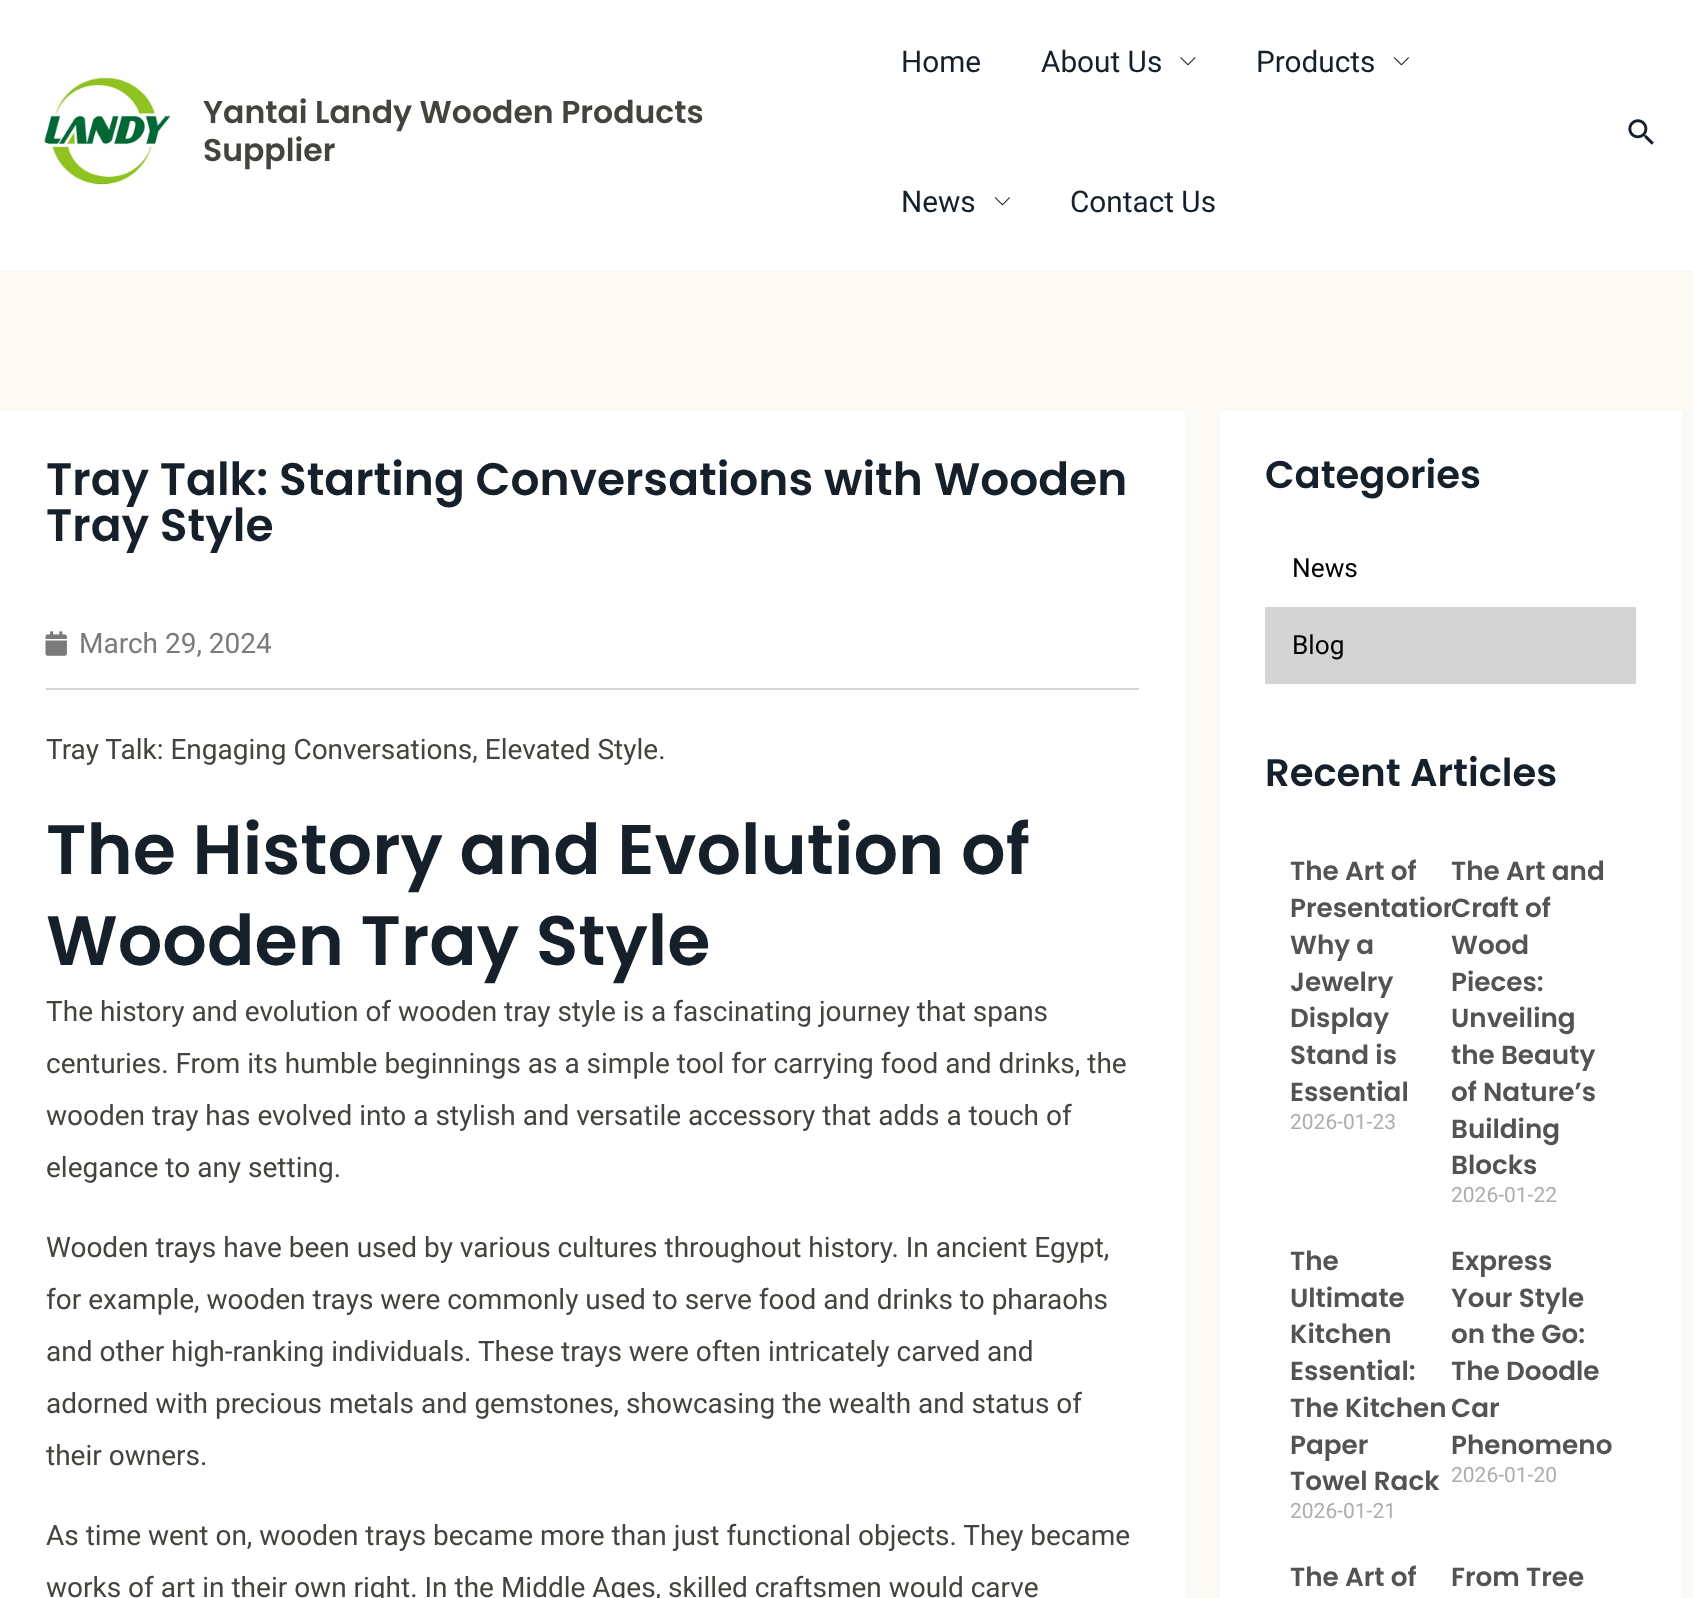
<svg xmlns="http://www.w3.org/2000/svg" width="1693" height="1598" viewBox="0 0 1693 1598">
  <defs>
    <clipPath id="clip1"><rect x="1290" y="852" width="161" height="382"/></clipPath>
  </defs>
  <rect width="100%" height="100%" fill="rgb(255,255,255)"/>
  <image x="43" y="77" width="129" height="108" href="pic1.png"/>
  <g font-family="Poppins" font-size="31.5" font-weight="600" fill="rgb(65,69,62)">
    <text>
      <tspan x="203" y="123">Yantai Landy Wooden Products</tspan>
      <tspan x="203" y="161">Supplier</tspan>
    </text>
  </g>
  <g font-family="Roboto" font-size="29.75" fill="rgb(22,32,43)">
    <text x="901" y="72">Home</text>
    <text x="1041" y="72">About Us</text>
  </g>
  <image x="1180" y="57" width="16" height="9" href="pic2.png"/>
  <text x="1256" y="72" font-family="Roboto" font-size="29.75" fill="rgb(22,32,43)">Products</text>
  <image x="1393" y="57" width="16" height="9" href="pic3.png"/>
  <text x="901" y="212" font-family="Roboto" font-size="29.75" fill="rgb(22,32,43)">News</text>
  <image x="994" y="197" width="16" height="9" href="pic3.png"/>
  <text x="1070" y="212" font-family="Roboto" font-size="29.75" fill="rgb(22,32,43)">Contact Us</text>
  <image x="1628" y="119" width="26" height="26" href="pic4.png"/>
  <rect x="0" y="271" width="1693" height="1327" fill="rgb(250,249,244)"/>
  <rect x="0" y="411" width="1185" height="1187" fill="rgb(255,255,255)"/>
  <g font-family="Poppins" font-size="45.5" font-weight="600" fill="rgb(22,32,43)">
    <text>
      <tspan x="46" y="495">Tray Talk: Starting Conversations with Wooden</tspan>
      <tspan x="46" y="541">Tray Style</tspan>
    </text>
  </g>
  <rect x="46" y="688" width="1093" height="2" fill="rgb(211,211,211)"/>
  <image x="45" y="631" width="22" height="25" href="pic5.png"/>
  <text x="79" y="653" font-family="Roboto" font-size="28" fill="rgb(122,122,122)">March 29, 2024</text>
  <text x="46" y="759" font-family="Roboto" font-size="28" fill="rgb(65,69,62)">Tray Talk: Engaging Conversations, Elevated Style.</text>
  <g font-family="Poppins" font-size="70" font-weight="600" fill="rgb(22,32,43)">
    <text>
      <tspan x="46" y="874">The History and Evolution of</tspan>
      <tspan x="46" y="965">Wooden Tray Style</tspan>
    </text>
  </g>
  <g font-family="Roboto" font-size="28" fill="rgb(65,69,62)">
    <text>
      <tspan x="46" y="1021">The history and evolution of wooden tray style is a fascinating journey that spans</tspan>
      <tspan x="46" y="1073">centuries. From its humble beginnings as a simple tool for carrying food and drinks, the</tspan>
      <tspan x="46" y="1125">wooden tray has evolved into a stylish and versatile accessory that adds a touch of</tspan>
      <tspan x="46" y="1177">elegance to any setting.</tspan>
    </text>
    <text>
      <tspan x="46" y="1257">Wooden trays have been used by various cultures throughout history. In ancient Egypt,</tspan>
      <tspan x="46" y="1309">for example, wooden trays were commonly used to serve food and drinks to pharaohs</tspan>
      <tspan x="46" y="1361">and other high-ranking individuals. These trays were often intricately carved and</tspan>
      <tspan x="46" y="1413">adorned with precious metals and gemstones, showcasing the wealth and status of</tspan>
      <tspan x="46" y="1465">their owners.</tspan>
    </text>
    <text>
      <tspan x="46" y="1545">As time went on, wooden trays became more than just functional objects. They became</tspan>
      <tspan x="46" y="1597">works of art in their own right. In the Middle Ages, skilled craftsmen would carve</tspan>
    </text>
  </g>
  <rect x="1220" y="411" width="462" height="1187" fill="rgb(255,255,255)"/>
  <text x="1265" y="488" font-family="Poppins" font-size="38.5" font-weight="600" fill="rgb(22,32,43)">Categories</text>
  <text x="1292" y="577" font-family="Roboto" font-size="26.25" fill="rgb(0,0,0)">News</text>
  <rect x="1265" y="607" width="371" height="77" fill="rgb(212,212,212)"/>
  <text x="1292" y="654" font-family="Roboto" font-size="26.25" fill="rgb(0,0,0)">Blog</text>
  <text x="1265" y="786" font-family="Poppins" font-size="38.5" font-weight="600" fill="rgb(22,32,43)">Recent Articles</text>
  <text x="1290" y="880" font-family="Poppins" font-size="26.25" font-weight="600" fill="rgb(83,83,83)">The Art of</text>
  <g clip-path="url(#clip1)">
    <text x="1290" y="917" font-family="Poppins" font-size="26.25" font-weight="600" fill="rgb(83,83,83)">Presentation</text>
  </g>
  <g font-family="Poppins" font-size="26.25" font-weight="600" fill="rgb(83,83,83)">
    <text>
      <tspan x="1290" y="954">Why a</tspan>
      <tspan x="1290" y="991">Jewelry</tspan>
      <tspan x="1290" y="1027">Display</tspan>
      <tspan x="1290" y="1064">Stand is</tspan>
      <tspan x="1290" y="1101">Essential</tspan>
    </text>
  </g>
  <text x="1290" y="1129" font-family="Roboto" font-size="21" fill="rgb(173,173,173)">2026-01-23</text>
  <g font-family="Poppins" font-size="26.25" font-weight="600" fill="rgb(83,83,83)">
    <text>
      <tspan x="1451" y="880">The Art and</tspan>
      <tspan x="1451" y="917">Craft of</tspan>
      <tspan x="1451" y="954">Wood</tspan>
      <tspan x="1451" y="991">Pieces:</tspan>
      <tspan x="1451" y="1027">Unveiling</tspan>
      <tspan x="1451" y="1064">the Beauty</tspan>
      <tspan x="1451" y="1101">of Nature’s</tspan>
      <tspan x="1451" y="1138">Building</tspan>
      <tspan x="1451" y="1174">Blocks</tspan>
    </text>
  </g>
  <text x="1451" y="1202" font-family="Roboto" font-size="21" fill="rgb(173,173,173)">2026-01-22</text>
  <g font-family="Poppins" font-size="26.25" font-weight="600" fill="rgb(83,83,83)">
    <text>
      <tspan x="1290" y="1270">The</tspan>
      <tspan x="1290" y="1307">Ultimate</tspan>
      <tspan x="1290" y="1343">Kitchen</tspan>
      <tspan x="1290" y="1380">Essential:</tspan>
      <tspan x="1290" y="1417">The Kitchen</tspan>
      <tspan x="1290" y="1454">Paper</tspan>
      <tspan x="1290" y="1490">Towel Rack</tspan>
    </text>
  </g>
  <text x="1290" y="1518" font-family="Roboto" font-size="21" fill="rgb(173,173,173)">2026-01-21</text>
  <g font-family="Poppins" font-size="26.25" font-weight="600" fill="rgb(83,83,83)">
    <text>
      <tspan x="1451" y="1270">Express</tspan>
      <tspan x="1451" y="1307">Your Style</tspan>
      <tspan x="1451" y="1343">on the Go:</tspan>
      <tspan x="1451" y="1380">The Doodle</tspan>
      <tspan x="1451" y="1417">Car</tspan>
      <tspan x="1451" y="1454">Phenomeno</tspan>
    </text>
  </g>
  <text x="1451" y="1482" font-family="Roboto" font-size="21" fill="rgb(173,173,173)">2026-01-20</text>
  <g font-family="Poppins" font-size="26.25" font-weight="600" fill="rgb(83,83,83)">
    <text x="1290" y="1586">The Art of</text>
    <text x="1451" y="1586">From Tree</text>
  </g>
</svg>
